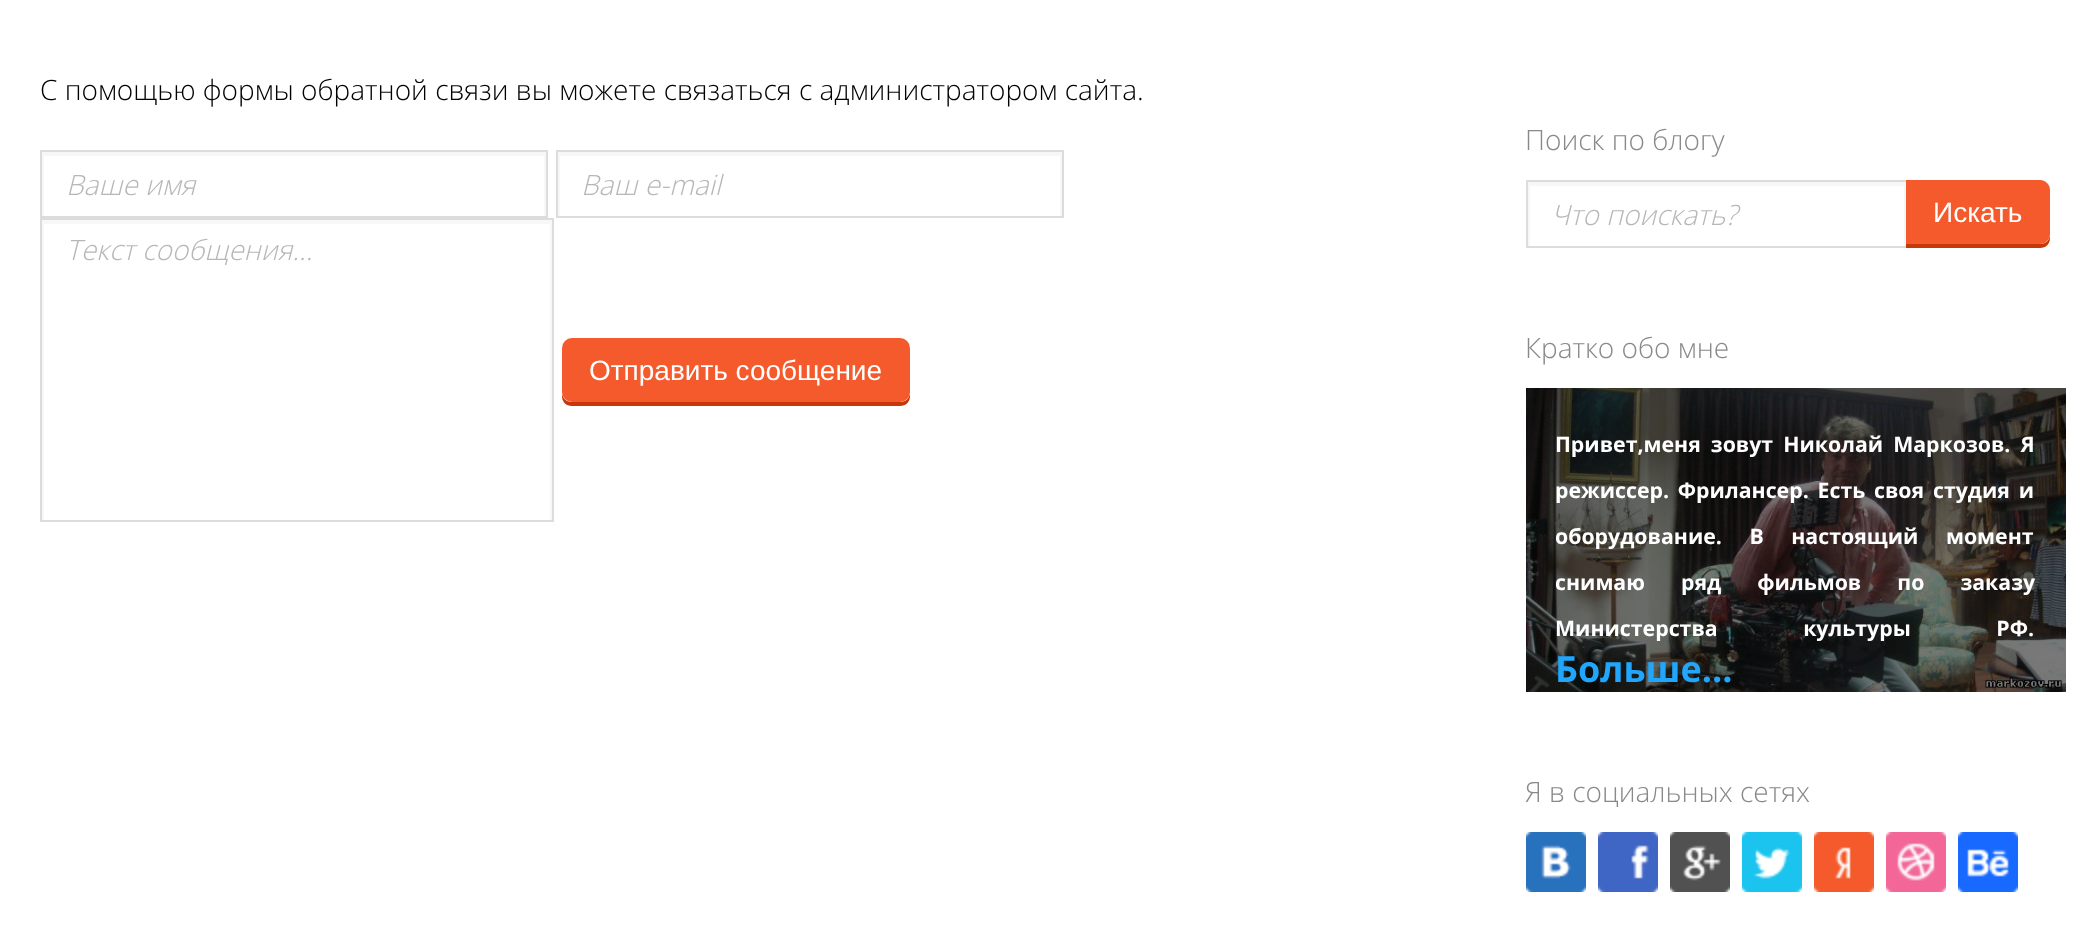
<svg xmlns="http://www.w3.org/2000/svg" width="2097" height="931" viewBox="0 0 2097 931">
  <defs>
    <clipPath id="clip1"><rect x="42" y="152" width="504" height="64"/></clipPath>
    <clipPath id="clip2"><rect x="558" y="152" width="504" height="64"/></clipPath>
    <clipPath id="clip3"><rect x="42" y="220" width="510" height="300"/></clipPath>
    <clipPath id="clip4"><rect x="1528" y="182" width="378" height="64"/></clipPath>
  </defs>
  <rect width="100%" height="100%" fill="rgb(255,255,255)"/>
  <text x="40" y="100" font-family="Open Sans" font-size="28" font-weight="300" fill="rgb(0,0,0)">С помощью формы обратной связи вы можете связаться с администратором сайта.</text>
  <g clip-path="url(#clip1)">
    <path d="M-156-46H744V414H-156ZM44 156H544V216H44Z" fill="rgb(247,247,247)" fill-rule="evenodd"/>
  </g>
  <rect x="41" y="151" width="506" height="66" fill="none" stroke="rgb(220,220,220)" stroke-width="2"/>
  <text x="66" y="195" font-family="Open Sans" font-size="28" font-weight="300" font-style="italic" fill="rgb(183,183,183)">Ваше имя</text>
  <g clip-path="url(#clip2)">
    <path d="M360-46H1260V414H360ZM560 156H1060V216H560Z" fill="rgb(247,247,247)" fill-rule="evenodd"/>
  </g>
  <rect x="557" y="151" width="506" height="66" fill="none" stroke="rgb(220,220,220)" stroke-width="2"/>
  <text x="581" y="195" font-family="Open Sans" font-size="28" font-weight="300" font-style="italic" fill="rgb(183,183,183)">Ваш e-mail</text>
  <g clip-path="url(#clip3)">
    <path d="M-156 22H750V718H-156ZM44 224H550V520H44Z" fill="rgb(247,247,247)" fill-rule="evenodd"/>
  </g>
  <rect x="41" y="219" width="512" height="302" fill="none" stroke="rgb(220,220,220)" stroke-width="2"/>
  <text x="66" y="260" font-family="Open Sans" font-size="28" font-weight="300" font-style="italic" fill="rgb(183,183,183)">Текст сообщения...</text>
  <path d="M562 392V396C562 402 566 406 572 406H900C906 406 910 402 910 396V392C910 398 906 402 900 402H572C566 402 562 398 562 392Z" fill="rgb(200,55,10)"/>
  <rect x="562" y="338" width="348" height="64" rx="10" fill="rgb(244,90,43)"/>
  <text x="589" y="380" font-family="Liberation Sans" font-size="28" fill="rgb(255,255,255)">Отправить сообщение</text>
  <text x="1525" y="150" font-family="Open Sans" font-size="28" font-weight="300" fill="rgb(137,137,137)">Поиск по блогу</text>
  <g clip-path="url(#clip4)">
    <path d="M1330-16H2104V444H1330ZM1530 186H1904V246H1530Z" fill="rgb(247,247,247)" fill-rule="evenodd"/>
  </g>
  <rect x="1526" y="180" width="380" height="2" fill="rgb(220,220,220)"/>
  <rect x="1526" y="246" width="380" height="2" fill="rgb(220,220,220)"/>
  <rect x="1526" y="180" width="2" height="68" fill="rgb(220,220,220)"/>
  <text x="1551" y="225" font-family="Open Sans" font-size="28" font-weight="300" font-style="italic" fill="rgb(183,183,183)">Что поискать?</text>
  <path d="M1906 244V248H2040C2046 248 2050 244 2050 238V234C2050 240 2046 244 2040 244Z" fill="rgb(200,55,10)"/>
  <path d="M1906 180H2040C2045.5 180 2050 184.5 2050 190V234C2050 239.5 2045.5 244 2040 244H1906Z" fill="rgb(244,90,43)"/>
  <text x="1933" y="222" font-family="Liberation Sans" font-size="28" fill="rgb(255,255,255)">Искать</text>
  <text x="1525" y="358" font-family="Open Sans" font-size="28" font-weight="300" fill="rgb(137,137,137)">Кратко обо мне</text>
  <image x="1526" y="388" width="540" height="304" href="pic1.png"/>
  <g font-family="Open Sans" font-size="21.3" font-weight="bold" fill="rgb(255,255,255)">
    <text x="1555" y="452" word-spacing="4.5">Привет,меня зовут Николай Маркозов. Я</text>
    <text x="1555" y="498" word-spacing="3.25">режиссер. Фрилансер. Есть своя студия и</text>
    <text x="1555" y="544" word-spacing="22">оборудование. В настоящий момент</text>
    <text x="1555" y="590" word-spacing="30.5">снимаю ряд фильмов по заказу</text>
    <text x="1555" y="636" word-spacing="80">Министерства культуры РФ.</text>
  </g>
  <text x="1555" y="682" font-family="Open Sans" font-size="36" font-weight="bold" fill="rgb(32,167,253)">Больше...</text>
  <text x="1525" y="802" font-family="Open Sans" font-size="28" font-weight="300" fill="rgb(137,137,137)">Я в социальных сетях</text>
  <image x="1526" y="832" width="60" height="60" href="pic2.png"/>
  <image x="1598" y="832" width="60" height="60" href="pic3.png"/>
  <image x="1670" y="832" width="60" height="60" href="pic4.png"/>
  <image x="1742" y="832" width="60" height="60" href="pic5.png"/>
  <image x="1814" y="832" width="60" height="60" href="pic6.png"/>
  <image x="1886" y="832" width="60" height="60" href="pic7.png"/>
  <image x="1958" y="832" width="60" height="60" href="pic8.png"/>
</svg>
